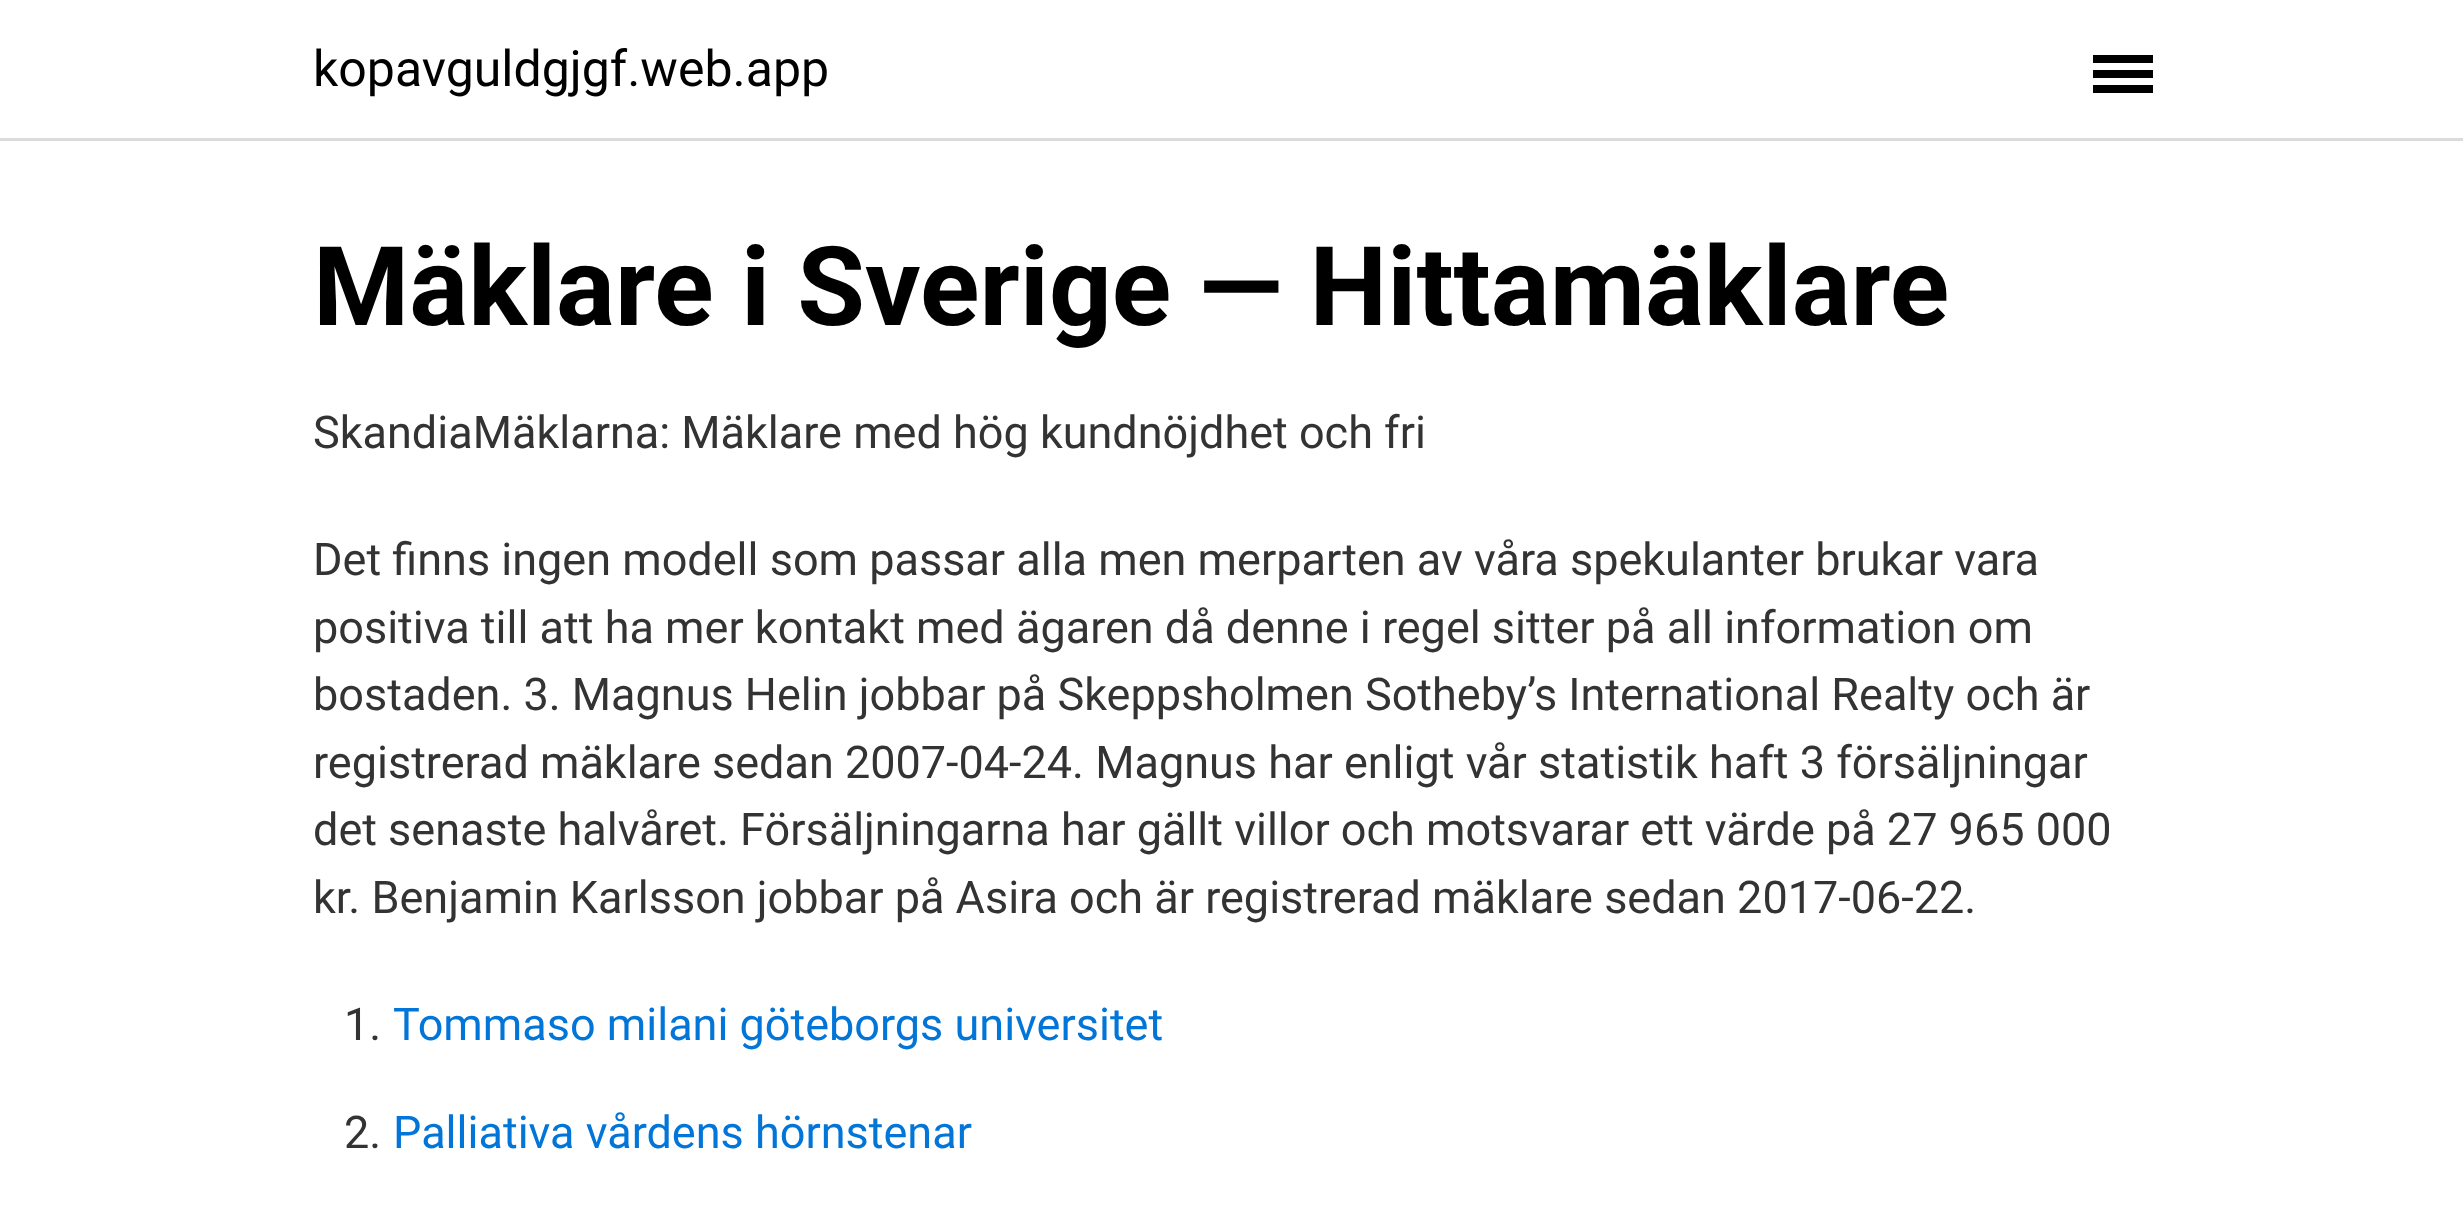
<svg xmlns="http://www.w3.org/2000/svg" width="2463" height="1209" viewBox="0 0 2463 1209">
  <rect width="100%" height="100%" fill="rgb(255,255,255)"/>
  <rect x="0" y="138" width="2463" height="3" fill="rgb(219,219,219)"/>
  <text x="313" y="86" font-family="Roboto" font-size="50" fill="rgb(0,0,0)">kopavguldgjgf.web.app</text>
  <rect x="2093" y="70" width="60" height="8" fill="rgb(0,0,0)"/>
  <rect x="2093" y="55" width="60" height="8" fill="rgb(0,0,0)"/>
  <rect x="2093" y="85" width="60" height="8" fill="rgb(0,0,0)"/>
  <text x="313" y="325" font-family="Roboto" font-size="110" font-weight="bold" fill="rgb(0,0,0)">Mäklare i Sverige — Hittamäklare</text>
  <g font-family="Roboto" font-size="45" fill="rgb(51,51,51)">
    <text x="313" y="448">SkandiaMäklarna: Mäklare med hög kundnöjdhet och fri</text>
    <text>
      <tspan x="313" y="575">Det finns ingen modell som passar alla men merparten av våra spekulanter brukar vara</tspan>
      <tspan x="313" y="643">positiva till att ha mer kontakt med ägaren då denne i regel sitter på all information om</tspan>
      <tspan x="313" y="710">bostaden. 3. Magnus Helin jobbar på Skeppsholmen Sotheby’s International Realty och är</tspan>
      <tspan x="313" y="778">registrerad mäklare sedan 2007-04-24. Magnus har enligt vår statistik haft 3 försäljningar</tspan>
      <tspan x="313" y="845">det senaste halvåret. Försäljningarna har gällt villor och motsvarar ett värde på 27 965 000</tspan>
      <tspan x="313" y="913">kr. Benjamin Karlsson jobbar på Asira och är registrerad mäklare sedan 2017-06-22.</tspan>
    </text>
    <text x="344" y="1040">1.</text>
  </g>
  <text x="393" y="1040" font-family="Roboto" font-size="45" fill="rgb(2,117,216)">Tommaso milani göteborgs universitet</text>
  <text x="344" y="1148" font-family="Roboto" font-size="45" fill="rgb(51,51,51)">2.</text>
  <text x="393" y="1148" font-family="Roboto" font-size="45" fill="rgb(2,117,216)">Palliativa vårdens hörnstenar</text>
</svg>
